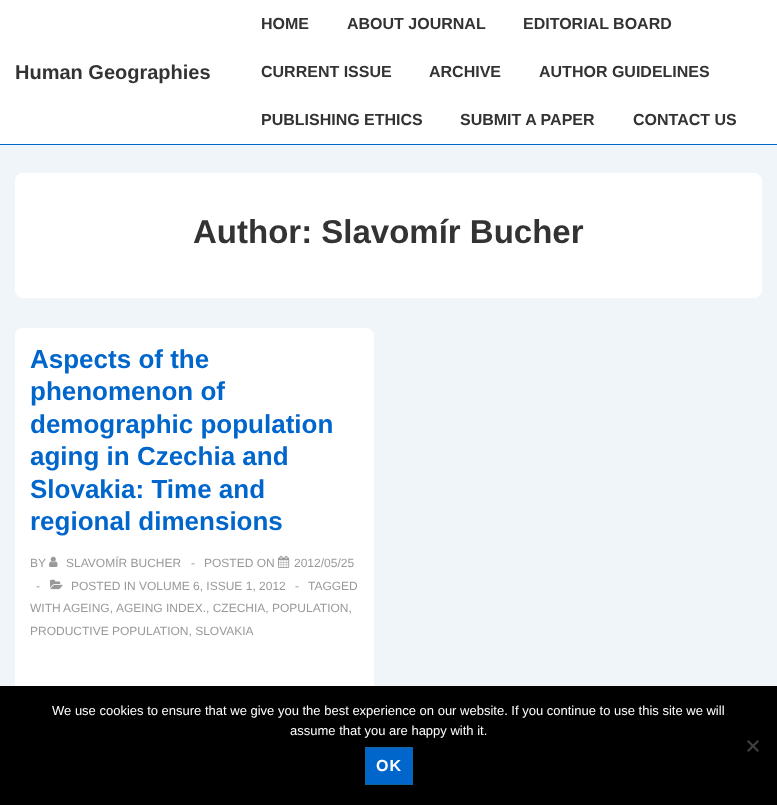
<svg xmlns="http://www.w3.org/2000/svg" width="777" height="805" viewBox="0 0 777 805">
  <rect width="100%" height="100%" fill="rgb(240,245,250)"/>
  <rect x="0" y="0" width="777" height="144" fill="rgb(255,255,255)"/>
  <rect x="0" y="144" width="777" height="1" fill="rgb(0,102,204)"/>
  <text x="15" y="79" font-family="Liberation Sans" font-size="20" font-weight="bold" fill="rgb(51,51,51)">Human Geographies</text>
  <g font-family="Liberation Sans" font-size="16" font-weight="bold" fill="rgb(51,51,51)">
    <text x="261" y="29">HOME</text>
    <text x="347" y="29">ABOUT JOURNAL</text>
    <text x="523" y="29">EDITORIAL BOARD</text>
    <text x="261" y="77">CURRENT ISSUE</text>
    <text x="429" y="77">ARCHIVE</text>
    <text x="539" y="77">AUTHOR GUIDELINES</text>
    <text x="261" y="125">PUBLISHING ETHICS</text>
    <text x="460" y="125">SUBMIT A PAPER</text>
    <text x="633" y="125">CONTACT US</text>
  </g>
  <rect x="15" y="173" width="747" height="125" rx="8" fill="rgb(255,255,255)"/>
  <text x="193" y="243" font-family="Liberation Sans" font-size="33" font-weight="bold" fill="rgb(51,51,51)">Author: Slavomír Bucher</text>
  <rect x="15" y="328" width="359" height="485" rx="8" fill="rgb(255,255,255)"/>
  <g font-family="Liberation Sans" font-size="26" font-weight="bold" fill="rgb(0,102,204)">
    <text>
      <tspan x="30" y="368">Aspects of the</tspan>
      <tspan x="30" y="400">phenomenon of</tspan>
      <tspan x="30" y="433">demographic population</tspan>
      <tspan x="30" y="465">aging in Czechia and</tspan>
      <tspan x="30" y="498">Slovakia: Time and</tspan>
      <tspan x="30" y="530">regional dimensions</tspan>
    </text>
  </g>
  <text x="30" y="567" font-family="Liberation Sans" font-size="12" fill="rgb(153,153,153)">BY</text>
  <image x="49" y="556" width="9" height="11" href="pic1.png"/>
  <g font-family="Liberation Sans" font-size="12" fill="rgb(153,153,153)">
    <text x="66" y="567">SLAVOMÍR BUCHER</text>
    <text x="191" y="567">-</text>
    <text x="204" y="567">POSTED ON</text>
  </g>
  <image x="278" y="555" width="12" height="13" href="pic2.png"/>
  <g font-family="Liberation Sans" font-size="12" fill="rgb(153,153,153)">
    <text x="294" y="567">2012/05/25</text>
    <text x="36" y="590">-</text>
  </g>
  <image x="50" y="579" width="13" height="11" href="pic3.png"/>
  <g font-family="Liberation Sans" font-size="12" fill="rgb(153,153,153)">
    <text x="71" y="590">POSTED IN VOLUME 6, ISSUE 1, 2012</text>
    <text x="295" y="590">-</text>
    <text x="308" y="590">TAGGED</text>
    <text x="30" y="612">WITH</text>
    <text x="63" y="612">AGEING,</text>
    <text x="116" y="612">AGEING INDEX., CZECHIA, POPULATION,</text>
    <text x="30" y="635">PRODUCTIVE POPULATION, SLOVAKIA</text>
  </g>
  <rect x="0" y="686" width="777" height="119" fill="rgb(0,0,0)"/>
  <g font-family="Liberation Sans" font-size="13" fill="rgb(255,255,255)">
    <text x="52" y="715">We use cookies to ensure that we give you the best experience on our website. If you continue to use this site we will</text>
    <text x="290" y="735">assume that you are happy with it.</text>
  </g>
  <path d="M757.5 740L759 741.5L748.5 752L747 750.5Z" fill="rgb(64,64,64)"/>
  <path d="M747 741.5L748.5 740L759 750.5L757.5 752Z" fill="rgb(64,64,64)"/>
  <rect x="365.5" y="747.5" width="47" height="37" fill="rgb(0,102,204)" stroke="rgb(16,101,156)"/>
  <text x="376" y="771" font-family="Liberation Sans" font-size="16" font-weight="bold" letter-spacing="1" fill="rgb(255,255,255)">OK</text>
</svg>
